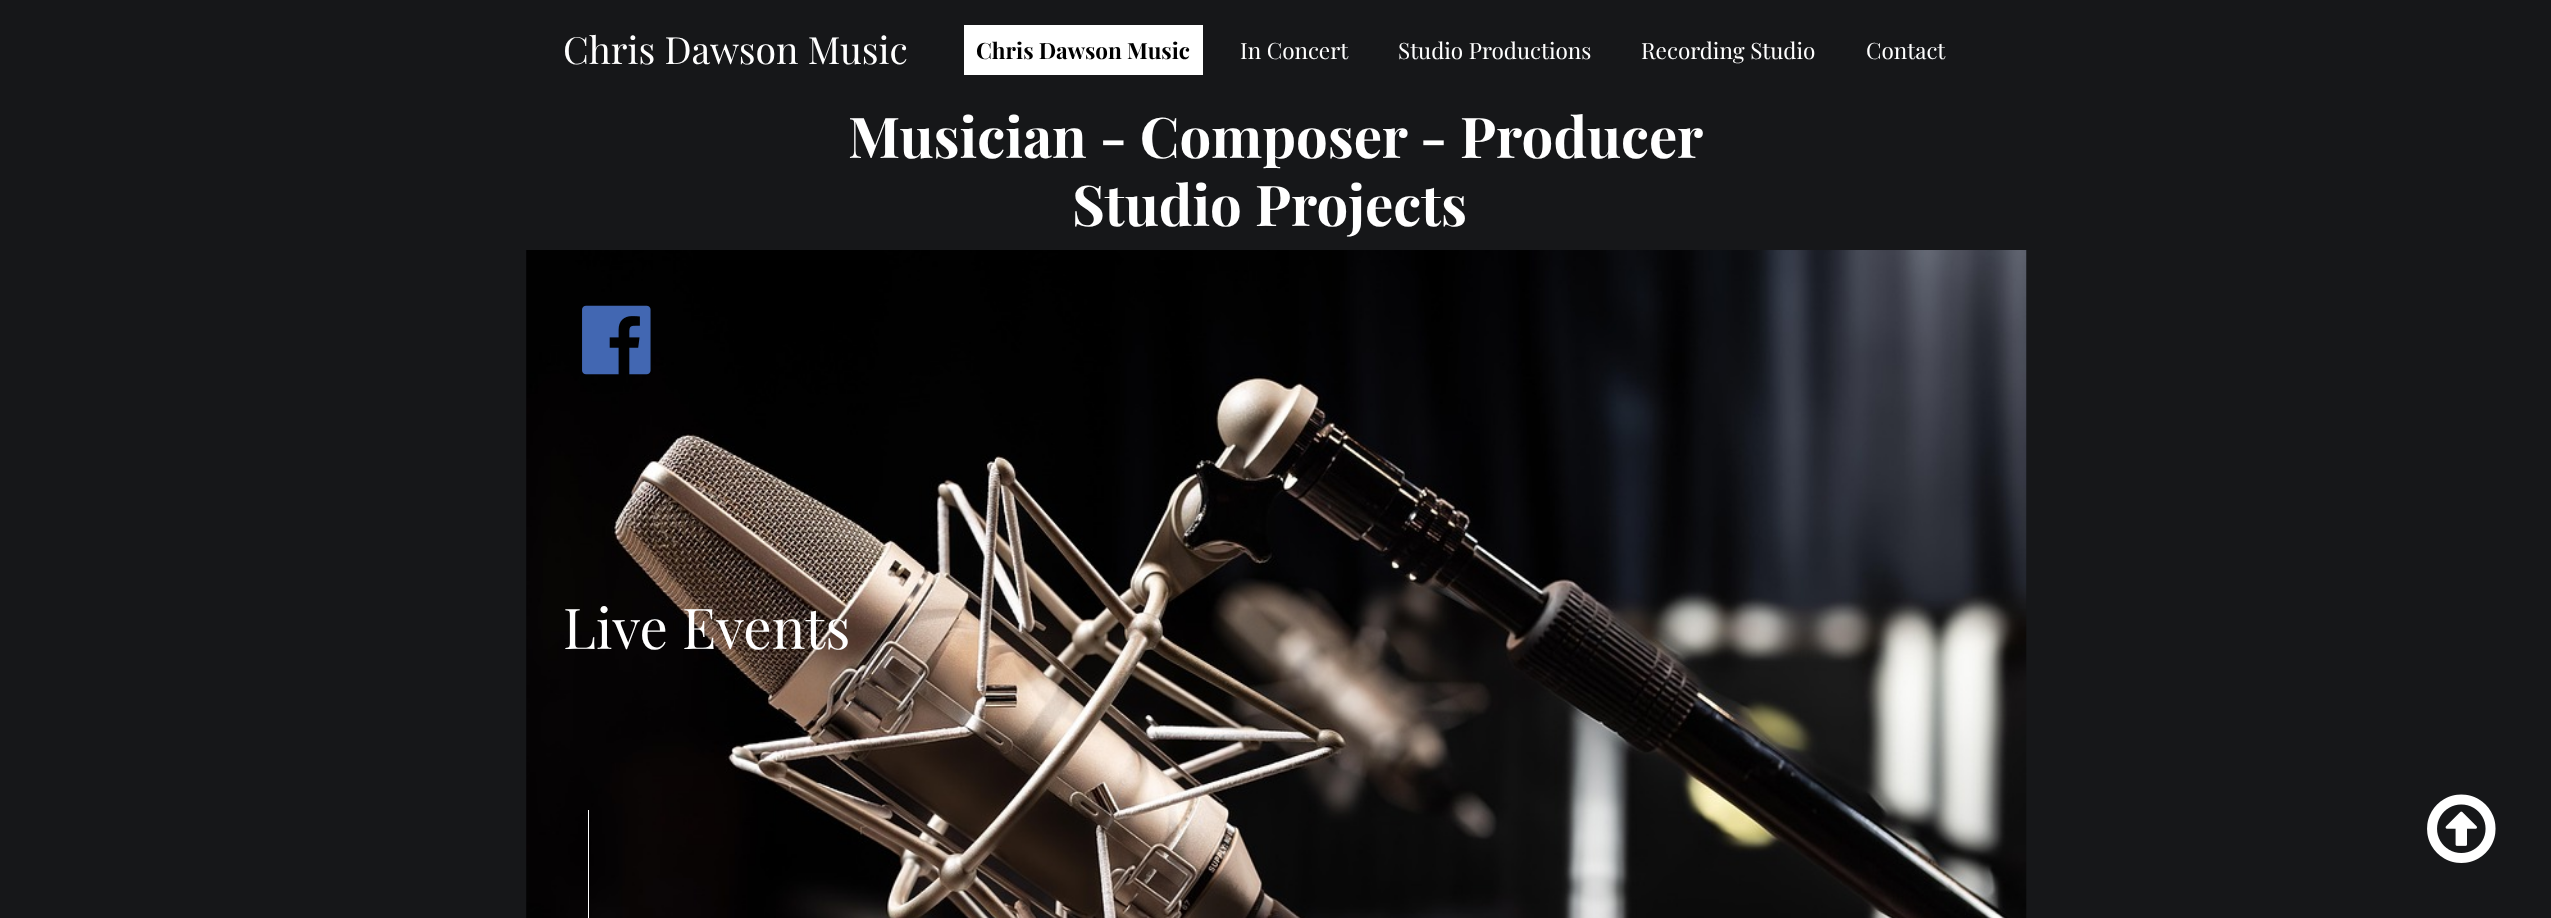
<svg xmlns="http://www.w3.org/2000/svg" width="2551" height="918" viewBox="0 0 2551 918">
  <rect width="100%" height="100%" fill="rgb(22,23,25)"/>
  <text x="563" y="64" font-family="Playfair Display" font-size="37.5" fill="rgb(255,255,255)">Chris Dawson Music</text>
  <rect x="964" y="25" width="239" height="50" fill="rgb(255,255,255)"/>
  <text x="976" y="59" font-family="Playfair Display" font-size="22.5" font-weight="bold" fill="rgb(0,0,0)">Chris Dawson Music</text>
  <g font-family="Playfair Display" font-size="22.5" fill="rgb(255,255,255)">
    <text x="1240" y="59">In Concert</text>
    <text x="1398" y="59">Studio Productions</text>
    <text x="1641" y="59">Recording Studio</text>
    <text x="1866" y="59">Contact</text>
  </g>
  <image x="2427" y="794" width="69" height="69" href="pic1.png"/>
  <g font-family="Playfair Display" font-size="56.25" font-weight="bold" fill="rgb(255,255,255)">
    <text x="848" y="158">Musician - Composer - Producer</text>
    <text x="1072" y="226">Studio Projects</text>
  </g>
  <image x="526" y="250" width="1501" height="668" href="pic2.png"/>
  <image x="582" y="305" width="69" height="70" href="pic3.png"/>
  <text x="563" y="649" font-family="Playfair Display" font-size="56.25" fill="rgb(255,255,255)">Live Events</text>
  <rect x="588" y="810" width="1" height="108" fill="rgb(255,255,255)"/>
</svg>
